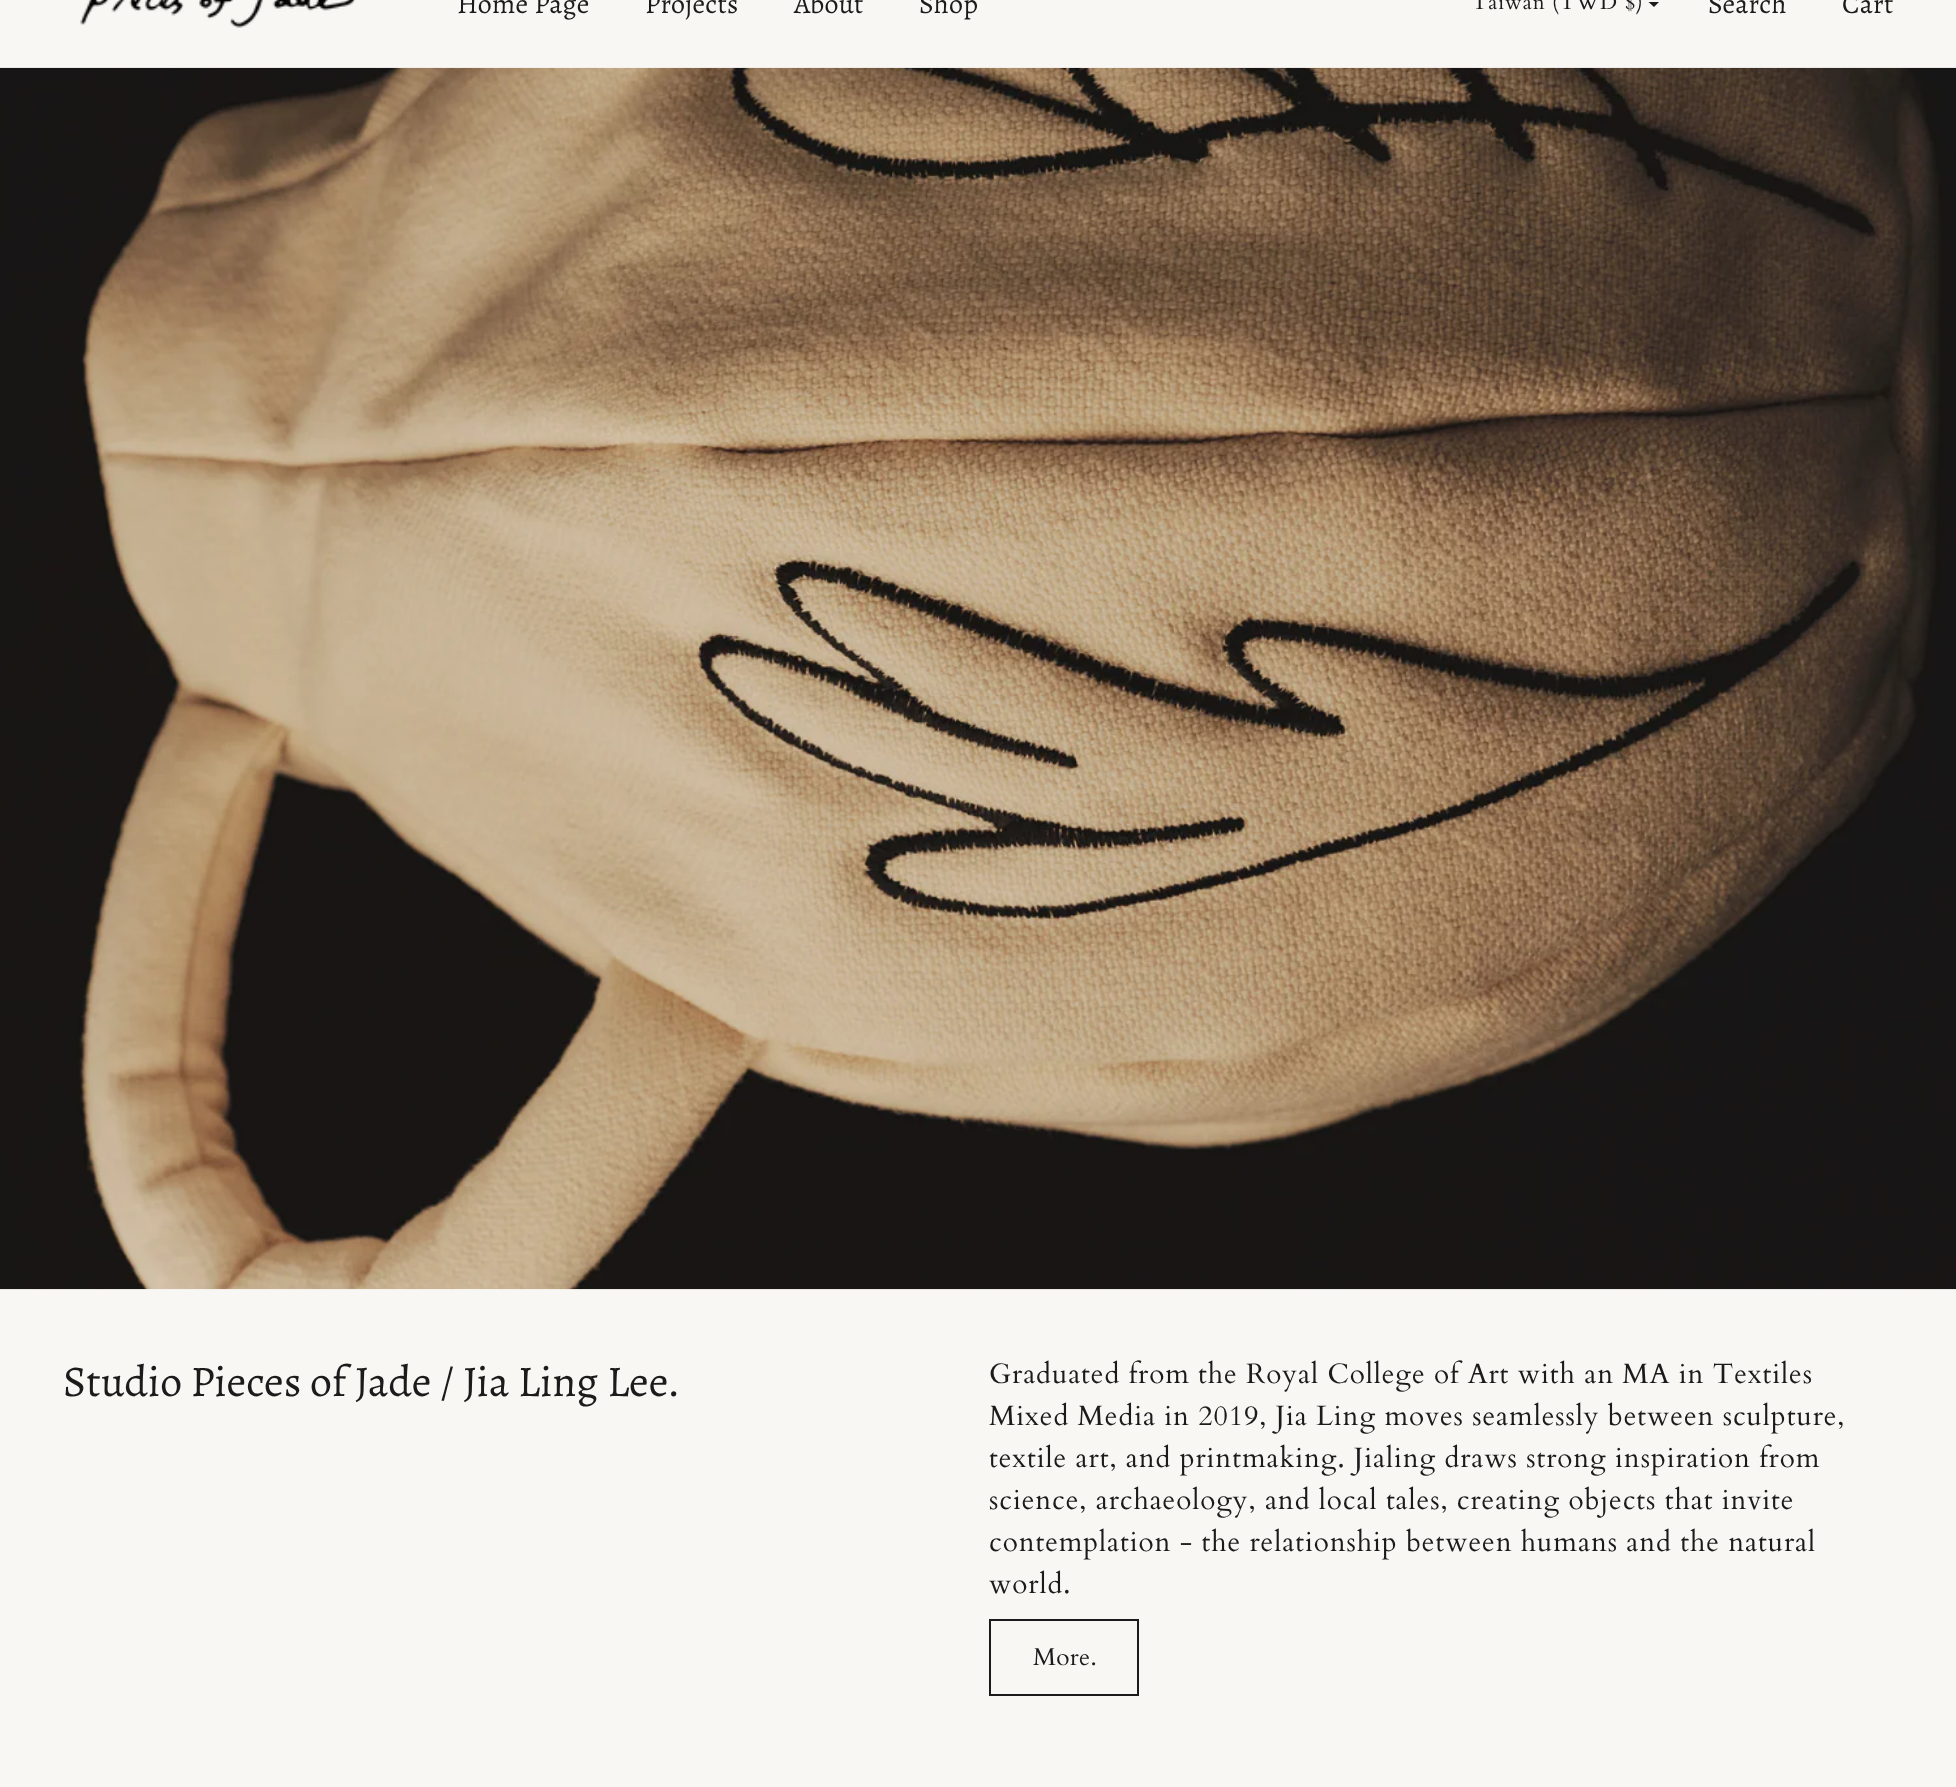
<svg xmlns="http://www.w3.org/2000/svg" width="1956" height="1787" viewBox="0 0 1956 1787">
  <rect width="100%" height="100%" fill="rgb(248,247,244)"/>
  <image x="80" y="0" width="276" height="28" href="pic1.png"/>
  <g font-family="Alegreya" font-size="28" letter-spacing="0.25" fill="rgb(28,27,27)">
    <text x="457" y="13">Home Page</text>
    <text x="645" y="13">Projects</text>
    <text x="794" y="13">About</text>
    <text x="919" y="13">Shop</text>
  </g>
  <text x="1472" y="9" font-family="Cardo" font-size="21" letter-spacing="0.88" fill="rgb(28,27,27)">Taiwan (TWD $)</text>
  <path d="M1648.5 2H1659L1654 7Z" fill="rgb(28,27,27)"/>
  <g font-family="Alegreya" font-size="28" letter-spacing="0.25" fill="rgb(28,27,27)">
    <text x="1708" y="13">Search</text>
    <text x="1842" y="13">Cart</text>
  </g>
  <image x="0" y="67" width="1956" height="1223" href="pic2.png"/>
  <text x="63" y="1396" font-family="Alegreya" font-size="43.75" fill="rgb(28,27,27)">Studio Pieces of Jade / Jia Ling Lee.</text>
  <g font-family="Cardo" font-size="28" letter-spacing="0.88" fill="rgb(28,27,27)">
    <text>
      <tspan x="989" y="1383">Graduated from the Royal College of Art with an MA in Textiles</tspan>
      <tspan x="989" y="1425">Mixed Media in 2019, Jia Ling moves seamlessly between sculpture,</tspan>
      <tspan x="989" y="1467">textile art, and printmaking. Jialing draws strong inspiration from</tspan>
      <tspan x="989" y="1509">science, archaeology, and local tales, creating objects that invite</tspan>
      <tspan x="989" y="1551">contemplation - the relationship between humans and the natural</tspan>
      <tspan x="989" y="1593">world.</tspan>
    </text>
  </g>
  <rect x="990" y="1620" width="148" height="75" fill="none" stroke="rgb(28,27,27)" stroke-width="2"/>
  <text x="1033" y="1665" font-family="Cardo" font-size="24.5" letter-spacing="0.25" fill="rgb(28,27,27)">More.</text>
</svg>
